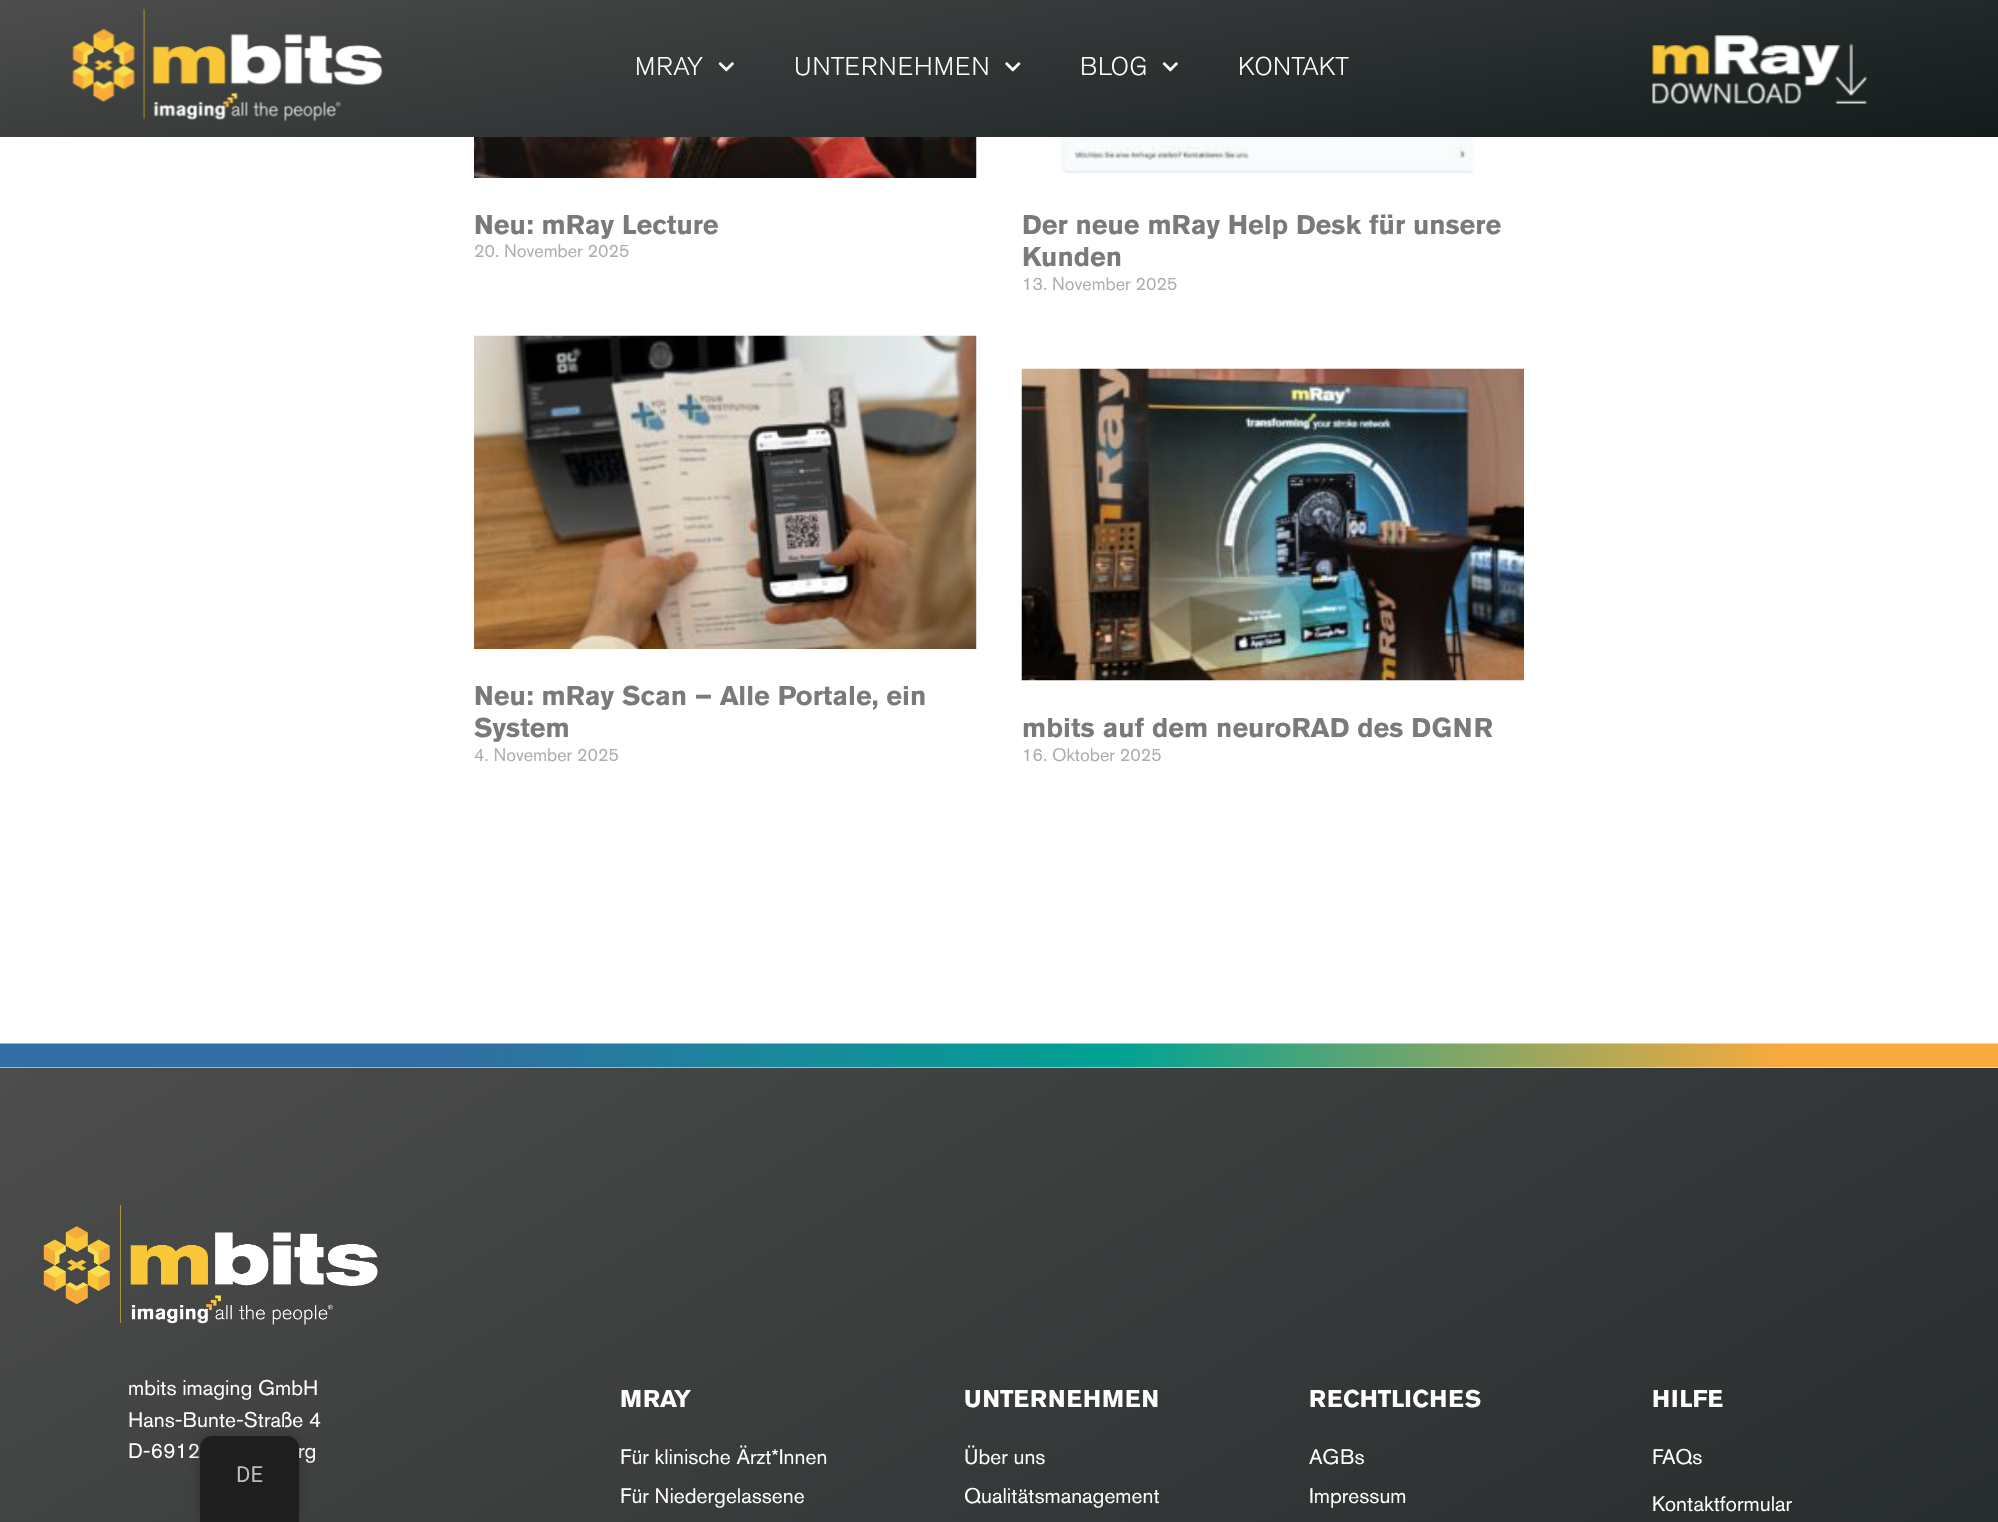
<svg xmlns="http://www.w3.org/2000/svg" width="1998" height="1522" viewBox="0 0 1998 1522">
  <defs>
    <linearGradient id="g1" gradientUnits="userSpaceOnUse" x1="1041" y1="305" x2="957" y2="-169"><stop offset="0" stop-color="rgb(19,27,27)"/><stop offset="1" stop-color="rgb(77,77,77)"/></linearGradient>
    <linearGradient id="g2" gradientUnits="userSpaceOnUse" x1="1534" y1="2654" x2="464" y2="800"><stop offset="0" stop-color="rgb(19,27,27)"/><stop offset="1" stop-color="rgb(77,77,77)"/></linearGradient>
  </defs>
  <rect width="100%" height="100%" fill="rgb(255,255,255)"/>
  <rect x="0" y="0" width="1998" height="137" fill="url(#g1)"/>
  <image x="72" y="8" width="311" height="114" href="pic1.png"/>
  <text x="635" y="75" font-family="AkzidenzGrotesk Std" font-size="25.5" font-weight="300" fill="rgb(255,255,255)">MRAY</text>
  <image x="718" y="62" width="16" height="10" href="pic2.png"/>
  <text x="794" y="75" font-family="AkzidenzGrotesk Std" font-size="25.5" font-weight="300" fill="rgb(255,255,255)">UNTERNEHMEN</text>
  <image x="1005" y="62" width="16" height="10" href="pic3.png"/>
  <text x="1080" y="75" font-family="AkzidenzGrotesk Std" font-size="25.5" font-weight="300" fill="rgb(255,255,255)">BLOG</text>
  <image x="1162" y="62" width="16" height="10" href="pic4.png"/>
  <text x="1238" y="75" font-family="AkzidenzGrotesk Std" font-size="25.5" font-weight="300" fill="rgb(255,255,255)">KONTAKT</text>
  <image x="1652" y="35" width="215" height="69" href="pic5.png"/>
  <image x="474" y="137" width="503" height="41" href="pic6.png"/>
  <text x="474" y="234" font-family="AkzidenzGrotesk Std" font-size="27" font-weight="bold" fill="rgb(122,122,122)">Neu: mRay Lecture</text>
  <text x="474" y="257" font-family="AkzidenzGrotesk Std" font-size="18" fill="rgb(173,173,173)">20. November 2025</text>
  <image x="1049" y="137" width="427" height="37" href="pic7.png"/>
  <g font-family="AkzidenzGrotesk Std" font-size="27" font-weight="bold" fill="rgb(122,122,122)">
    <text>
      <tspan x="1022" y="234">Der neue mRay Help Desk für unsere</tspan>
      <tspan x="1022" y="266">Kunden</tspan>
    </text>
  </g>
  <text x="1022" y="290" font-family="AkzidenzGrotesk Std" font-size="18" fill="rgb(173,173,173)">13. November 2025</text>
  <image x="474" y="335" width="503" height="314" href="pic8.png"/>
  <g font-family="AkzidenzGrotesk Std" font-size="27" font-weight="bold" fill="rgb(122,122,122)">
    <text>
      <tspan x="474" y="705">Neu: mRay Scan – Alle Portale, ein</tspan>
      <tspan x="474" y="737">System</tspan>
    </text>
  </g>
  <text x="474" y="761" font-family="AkzidenzGrotesk Std" font-size="18" fill="rgb(173,173,173)">4. November 2025</text>
  <image x="1021" y="368" width="503" height="313" href="pic9.png"/>
  <text x="1022" y="737" font-family="AkzidenzGrotesk Std" font-size="27" font-weight="bold" fill="rgb(122,122,122)">mbits auf dem neuroRAD des DGNR</text>
  <text x="1022" y="761" font-family="AkzidenzGrotesk Std" font-size="18" fill="rgb(173,173,173)">16. Oktober 2025</text>
  <rect x="0" y="1068" width="1998" height="454" fill="url(#g2)"/>
  <image x="0" y="1043" width="1998" height="25" href="pic10.png"/>
  <image x="43" y="1204" width="335" height="121" href="pic11.png"/>
  <g font-family="AkzidenzGrotesk Std" font-size="21" fill="rgb(255,255,255)">
    <text>
      <tspan x="128" y="1395">mbits imaging GmbH</tspan>
      <tspan x="128" y="1427">Hans-Bunte-Straße 4</tspan>
      <tspan x="128" y="1458">D-6912</tspan>
    </text>
    <text x="298" y="1458">rg</text>
  </g>
  <text x="620" y="1407" font-family="AkzidenzGrotesk Std" font-size="24" font-weight="bold" fill="rgb(255,255,255)">MRAY</text>
  <g font-family="AkzidenzGrotesk Std" font-size="21" fill="rgb(255,255,255)">
    <text>
      <tspan x="620" y="1464">Für klinische Ärzt*Innen</tspan>
      <tspan x="620" y="1503">Für Niedergelassene</tspan>
    </text>
  </g>
  <text x="964" y="1407" font-family="AkzidenzGrotesk Std" font-size="24" font-weight="bold" fill="rgb(255,255,255)">UNTERNEHMEN</text>
  <g font-family="AkzidenzGrotesk Std" font-size="21" fill="rgb(255,255,255)">
    <text>
      <tspan x="964" y="1464">Über uns</tspan>
      <tspan x="964" y="1503">Qualitätsmanagement</tspan>
    </text>
  </g>
  <text x="1309" y="1407" font-family="AkzidenzGrotesk Std" font-size="24" font-weight="bold" fill="rgb(255,255,255)">RECHTLICHES</text>
  <g font-family="AkzidenzGrotesk Std" font-size="21" fill="rgb(255,255,255)">
    <text>
      <tspan x="1309" y="1464">AGBs</tspan>
      <tspan x="1309" y="1503">Impressum</tspan>
    </text>
  </g>
  <text x="1652" y="1407" font-family="AkzidenzGrotesk Std" font-size="24" font-weight="bold" fill="rgb(255,255,255)">HILFE</text>
  <g font-family="AkzidenzGrotesk Std" font-size="21" fill="rgb(255,255,255)">
    <text x="1652" y="1464">FAQs</text>
    <text x="1652" y="1511">Kontaktformular</text>
  </g>
  <rect x="200" y="1436" width="99" height="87" rx="12" fill="rgba(0,0,0,0.25)" filter="blur(6px)"/>
  <path d="M212 1436H287C293.5 1436 299 1441.5 299 1448V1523H200V1448C200 1441.5 205.5 1436 212 1436Z" fill="rgb(30,30,30)"/>
  <text x="236" y="1482" font-family="Roboto" font-size="22" fill="rgb(189,189,189)">DE</text>
</svg>
